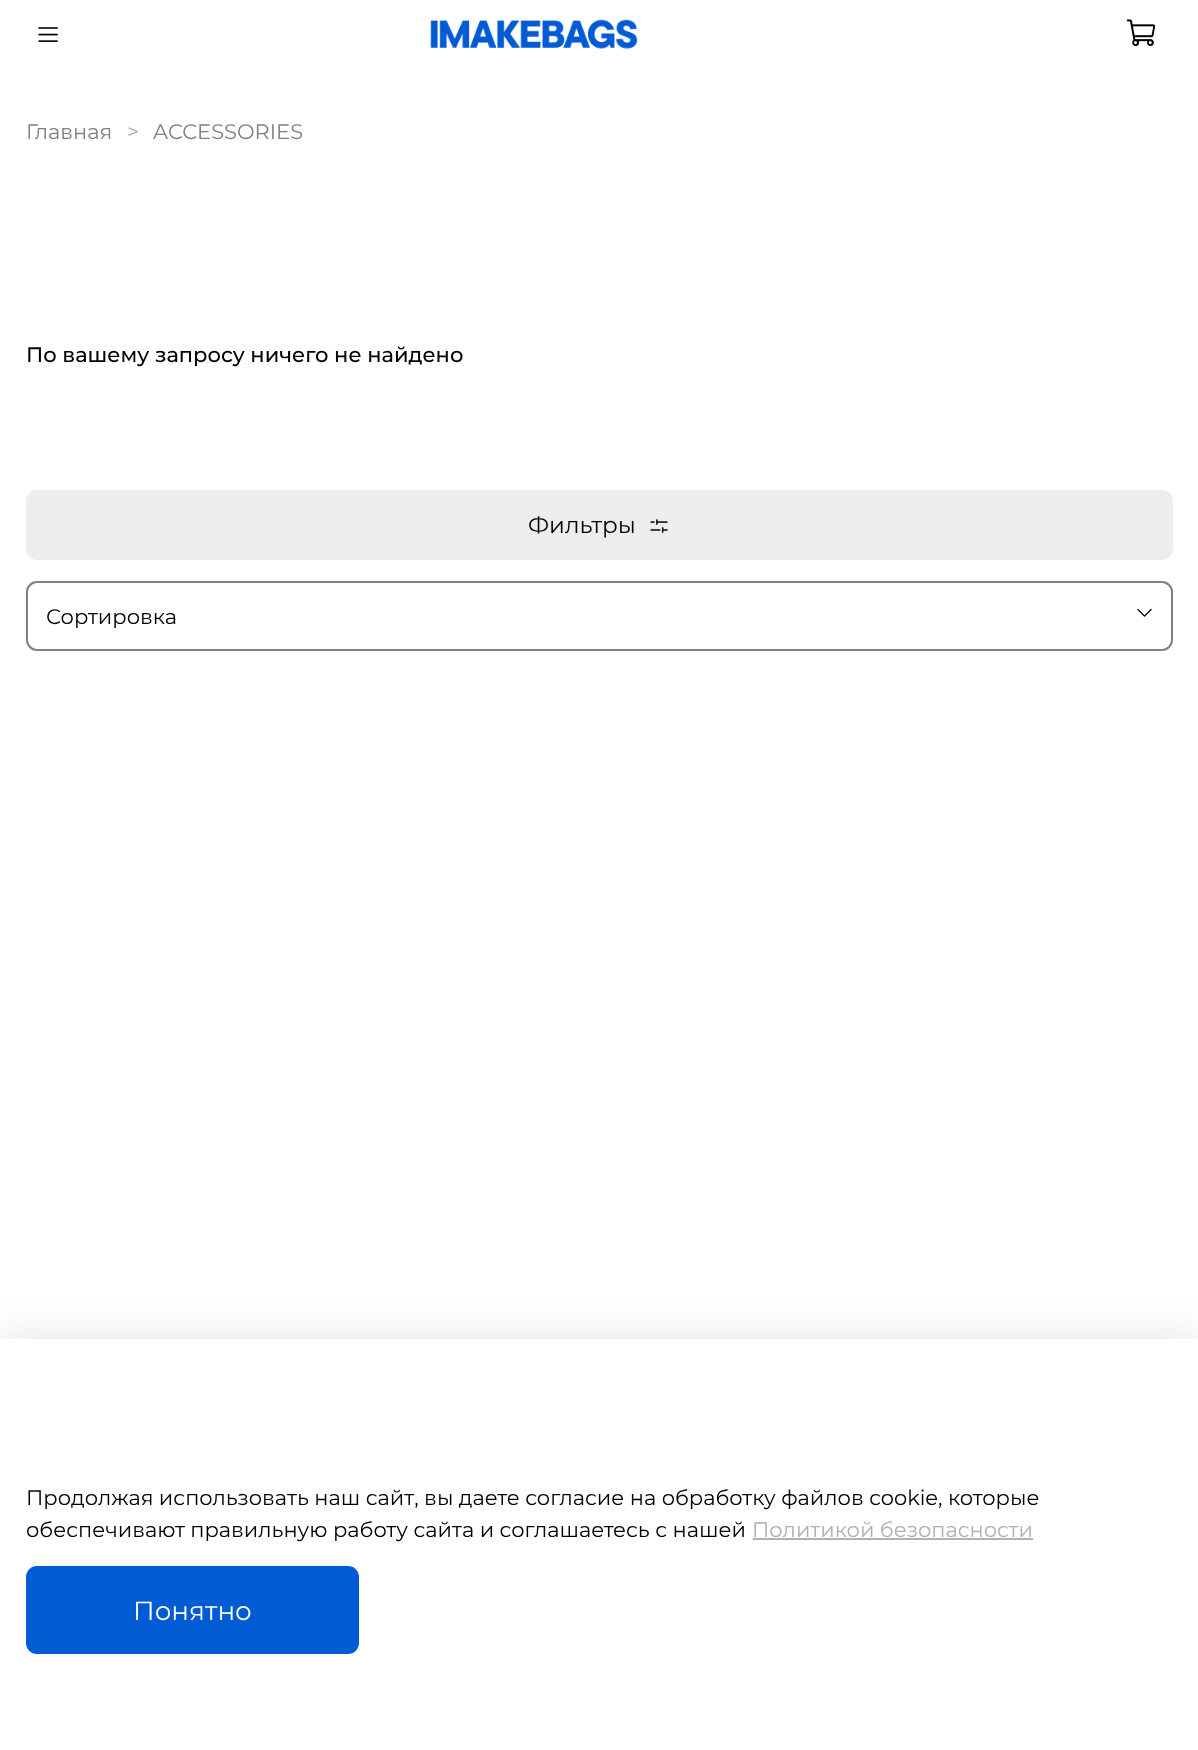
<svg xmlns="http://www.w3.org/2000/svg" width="1198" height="1750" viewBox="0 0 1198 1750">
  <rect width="100%" height="100%" fill="rgb(255,255,255)"/>
  <image x="38" y="27" width="20" height="15" href="pic1.png"/>
  <image x="430" y="19" width="208" height="30" href="pic2.png"/>
  <image x="1126" y="19" width="30" height="27" href="pic3.png"/>
  <text x="26" y="139" font-family="Montserrat" font-size="21" fill="rgb(128,128,128)">Главная</text>
  <text x="127" y="139" font-family="Montserrat" font-size="21" fill="rgb(166,166,166)">&gt;</text>
  <text x="153" y="139" font-family="Montserrat" font-size="21" fill="rgb(128,128,128)">ACCESSORIES</text>
  <text x="26" y="362" font-family="Montserrat" font-size="21" font-weight="500" fill="rgb(0,0,0)">По вашему запросу ничего не найдено</text>
  <rect x="26" y="490" width="1147" height="70" rx="11" fill="rgb(237,237,237)"/>
  <text x="528" y="533" font-family="Montserrat" font-size="23" fill="rgb(0,0,0)">Фильтры</text>
  <image x="650" y="519" width="18" height="14" href="pic4.png"/>
  <rect x="27" y="582" width="1145" height="68" rx="10" fill="none" stroke="rgb(128,128,128)" stroke-width="2"/>
  <text x="46" y="624" font-family="Montserrat" font-size="21" fill="rgb(0,0,0)">Сортировка</text>
  <image x="1137" y="608" width="15" height="9" href="pic5.png"/>
  <rect x="-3" y="1334" width="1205" height="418" fill="rgba(0,0,0,0.09)" filter="blur(20px)"/>
  <rect x="0" y="1339" width="1198" height="411" fill="rgb(255,255,255)"/>
  <g font-family="Montserrat" font-size="21" fill="rgb(0,0,0)">
    <text>
      <tspan x="26" y="1505">Продолжая использовать наш сайт, вы даете согласие на обработку файлов cookie, которые</tspan>
      <tspan x="26" y="1537">обеспечивают правильную работу сайта и соглашаетесь с нашей</tspan>
    </text>
  </g>
  <text x="752" y="1537" font-family="Montserrat" font-size="21" fill="rgb(176,176,177)">Политикой безопасности</text>
  <rect x="753" y="1538" width="280" height="2" fill="rgb(176,176,177)"/>
  <rect x="26" y="1566" width="333" height="88" rx="11" fill="rgb(1,91,213)"/>
  <text x="133" y="1620" font-family="Montserrat" font-size="26.25" fill="rgb(255,255,255)">Понятно</text>
</svg>
